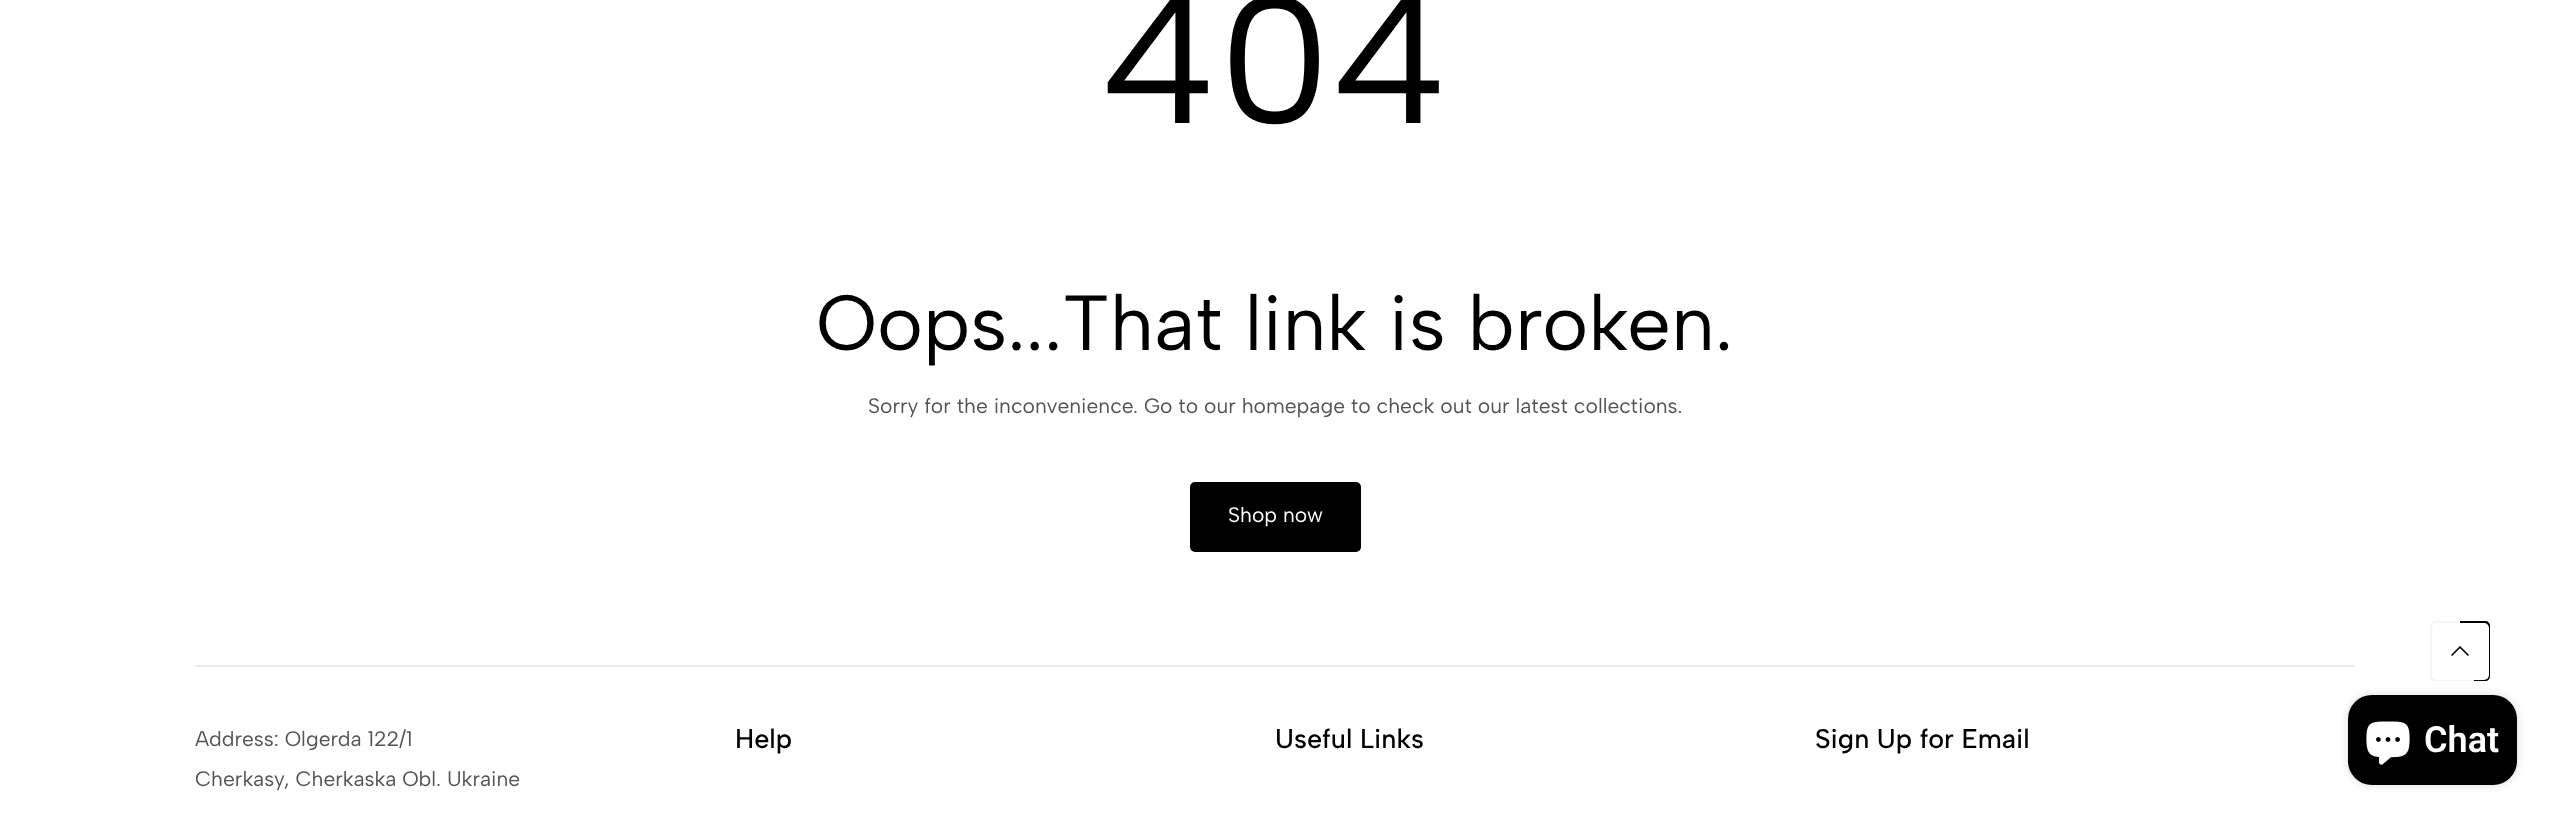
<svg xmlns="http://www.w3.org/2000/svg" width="2549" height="815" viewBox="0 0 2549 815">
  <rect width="100%" height="100%" fill="rgb(255,255,255)"/>
  <text x="1100" y="123" font-family="Albert Sans" font-size="180" fill="rgb(0,0,0)">404</text>
  <text x="816" y="350" font-family="Albert Sans" font-size="78" fill="rgb(0,0,0)">Oops...That link is broken.</text>
  <text x="868" y="413" font-family="Albert Sans" font-size="21" fill="rgb(84,84,84)">Sorry for the inconvenience. Go to our homepage to check out our latest collections.</text>
  <rect x="1191" y="483" width="169" height="68" rx="4" fill="rgb(0,0,0)" stroke="rgb(0,0,0)" stroke-width="2"/>
  <text x="1228" y="522" font-family="Albert Sans" font-size="21" fill="rgb(255,255,255)">Shop now</text>
  <path d="M2460 651L2474 681H2485C2488 681 2490 679 2490 676V626C2490 623 2488 621 2485 621H2460Z" fill="rgb(0,0,0)"/>
  <path d="M2460 651V621H2435C2432 621 2430 623 2430 626V676C2430 679 2432 681 2435 681H2474Z" fill="rgb(245,245,245)"/>
  <rect x="2432" y="623" width="57" height="57" rx="5" fill="rgb(255,255,255)"/>
  <image x="2451" y="646" width="18" height="10" href="pic1.png"/>
  <rect x="195" y="665" width="2160" height="2" fill="rgb(235,235,235)"/>
  <g font-family="Albert Sans" font-size="21" fill="rgb(84,84,84)">
    <text>
      <tspan x="195" y="746">Address: Olgerda 122/1</tspan>
      <tspan x="195" y="786">Cherkasy, Cherkaska Obl. Ukraine</tspan>
    </text>
  </g>
  <g font-family="Albert Sans" font-size="27" font-weight="500" fill="rgb(0,0,0)">
    <text x="735" y="748">Help</text>
    <text x="1275" y="748">Useful Links</text>
    <text x="1815" y="748">Sign Up for Email</text>
  </g>
  <rect x="2348" y="695" width="169" height="90" rx="24" fill="rgba(0,0,0,0.15)" filter="blur(4px)"/>
  <rect x="2348" y="695" width="169" height="90" rx="24" fill="rgb(0,0,0)"/>
  <image x="2366" y="721" width="44" height="44" href="pic2.png"/>
  <text x="2424" y="752" font-family="Roboto" font-size="36" font-weight="600" fill="rgb(255,255,255)">Chat</text>
</svg>
